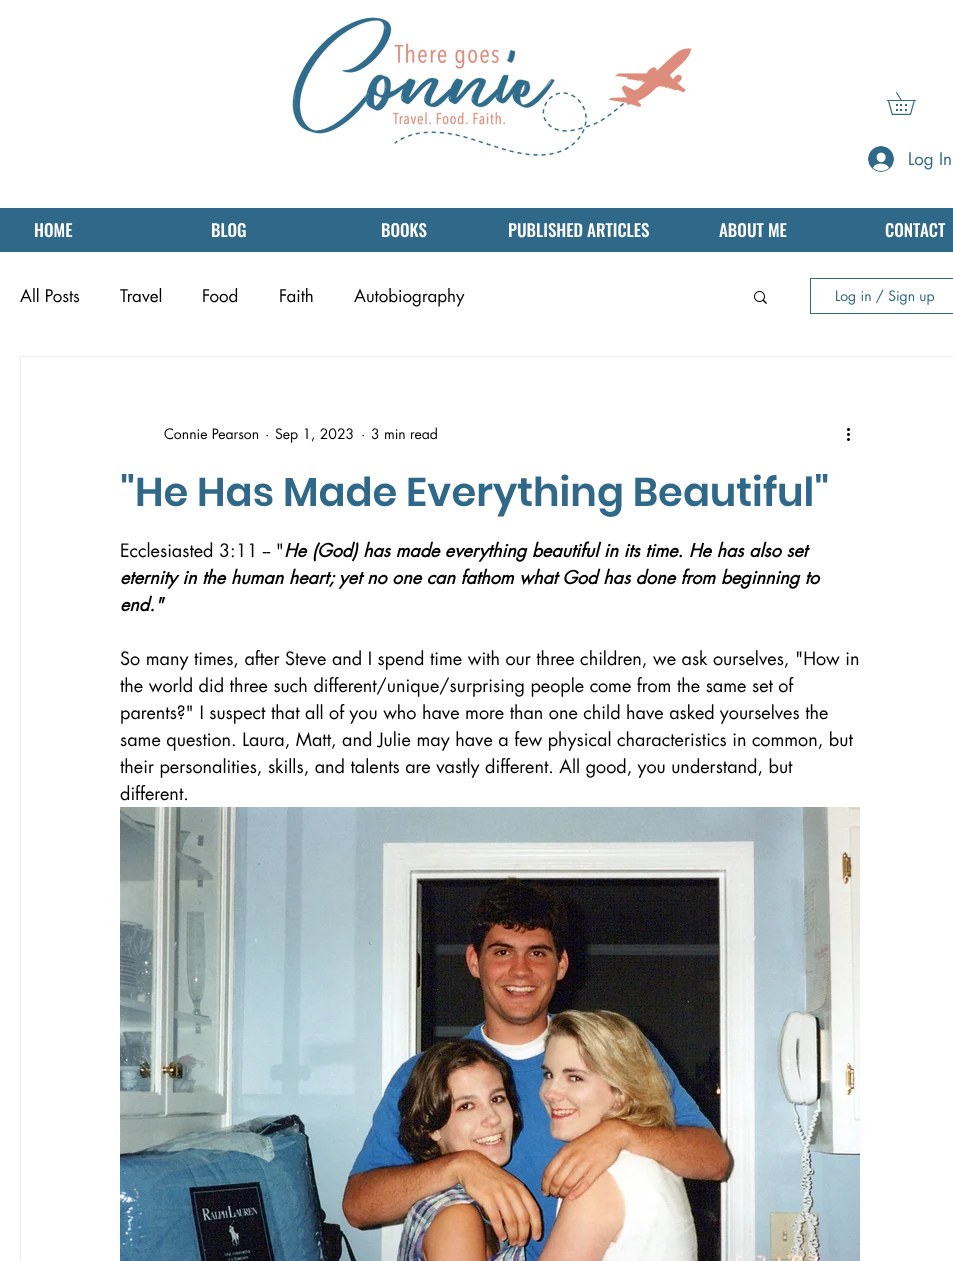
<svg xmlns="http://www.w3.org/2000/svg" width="953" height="1261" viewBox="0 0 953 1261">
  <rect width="100%" height="100%" fill="rgb(255,255,255)"/>
  <image x="292" y="17" width="400" height="139" href="pic1.png"/>
  <image x="887" y="92" width="29" height="23" href="pic2.png"/>
  <image x="868" y="146" width="26" height="26" href="pic3.png"/>
  <text x="908" y="165" font-family="futura" font-size="17" fill="rgb(47,104,137)">Log In</text>
  <rect x="0" y="208" width="953" height="44" fill="rgb(47,104,137)"/>
  <g font-family="Oswald" font-size="17" font-weight="500" fill="rgb(255,255,255)">
    <text x="34" y="237">HOME</text>
    <text x="211" y="237">BLOG</text>
    <text x="381" y="237">BOOKS</text>
    <text x="508" y="237">PUBLISHED ARTICLES</text>
    <text x="719" y="237">ABOUT ME</text>
    <text x="885" y="237">CONTACT</text>
  </g>
  <g font-family="futura" font-size="17" fill="rgb(0,0,0)">
    <text x="20" y="302">All Posts</text>
    <text x="120" y="302">Travel</text>
    <text x="202" y="302">Food</text>
    <text x="279" y="302">Faith</text>
    <text x="354" y="302">Autobiography</text>
  </g>
  <image x="754" y="291" width="13" height="13" href="pic4.png"/>
  <rect x="810.5" y="278.5" width="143" height="35" fill="none" stroke="rgb(47,104,137)"/>
  <text x="835" y="301" font-family="futura" font-size="14" fill="rgb(47,104,137)">Log in / Sign up</text>
  <rect x="20.5" y="356.5" width="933" height="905" fill="none" stroke="rgb(238,236,236)"/>
  <g font-family="futura" font-size="14" fill="rgb(0,0,0)">
    <text x="164" y="439">Connie Pearson</text>
    <text x="265" y="439">·</text>
    <text x="275" y="439">Sep 1, 2023</text>
    <text x="361" y="439">·</text>
    <text x="371" y="439">3 min read</text>
  </g>
  <image x="847" y="428" width="3" height="13" href="pic5.png"/>
  <text x="120" y="506" font-family="Poppins" font-size="40" font-weight="600" fill="rgb(47,104,137)">"He Has Made Everything Beautiful"</text>
  <text x="120" y="557" font-family="futura" font-size="18" fill="rgb(0,0,0)">Ecclesiasted 3:11 -- "</text>
  <g font-family="futura" font-size="18" font-weight="bold" font-style="italic" fill="rgb(0,0,0)">
    <text x="284" y="557">He (God) has made everything beautiful in its time. He has also set</text>
    <text>
      <tspan x="120" y="584">eternity in the human heart; yet no one can fathom what God has done from beginning to</tspan>
      <tspan x="120" y="611">end."</tspan>
    </text>
  </g>
  <g font-family="futura" font-size="18" fill="rgb(0,0,0)">
    <text>
      <tspan x="120" y="665">So many times, after Steve and I spend time with our three children, we ask ourselves, "How in</tspan>
      <tspan x="120" y="692">the world did three such different/unique/surprising people come from the same set of</tspan>
      <tspan x="120" y="719">parents?" I suspect that all of you who have more than one child have asked yourselves the</tspan>
      <tspan x="120" y="746">same question. Laura, Matt, and Julie may have a few physical characteristics in common, but</tspan>
      <tspan x="120" y="773">their personalities, skills, and talents are vastly different. All good, you understand, but</tspan>
      <tspan x="120" y="800">different.</tspan>
    </text>
  </g>
  <image x="120" y="807" width="740" height="454" href="pic6.png"/>
</svg>
